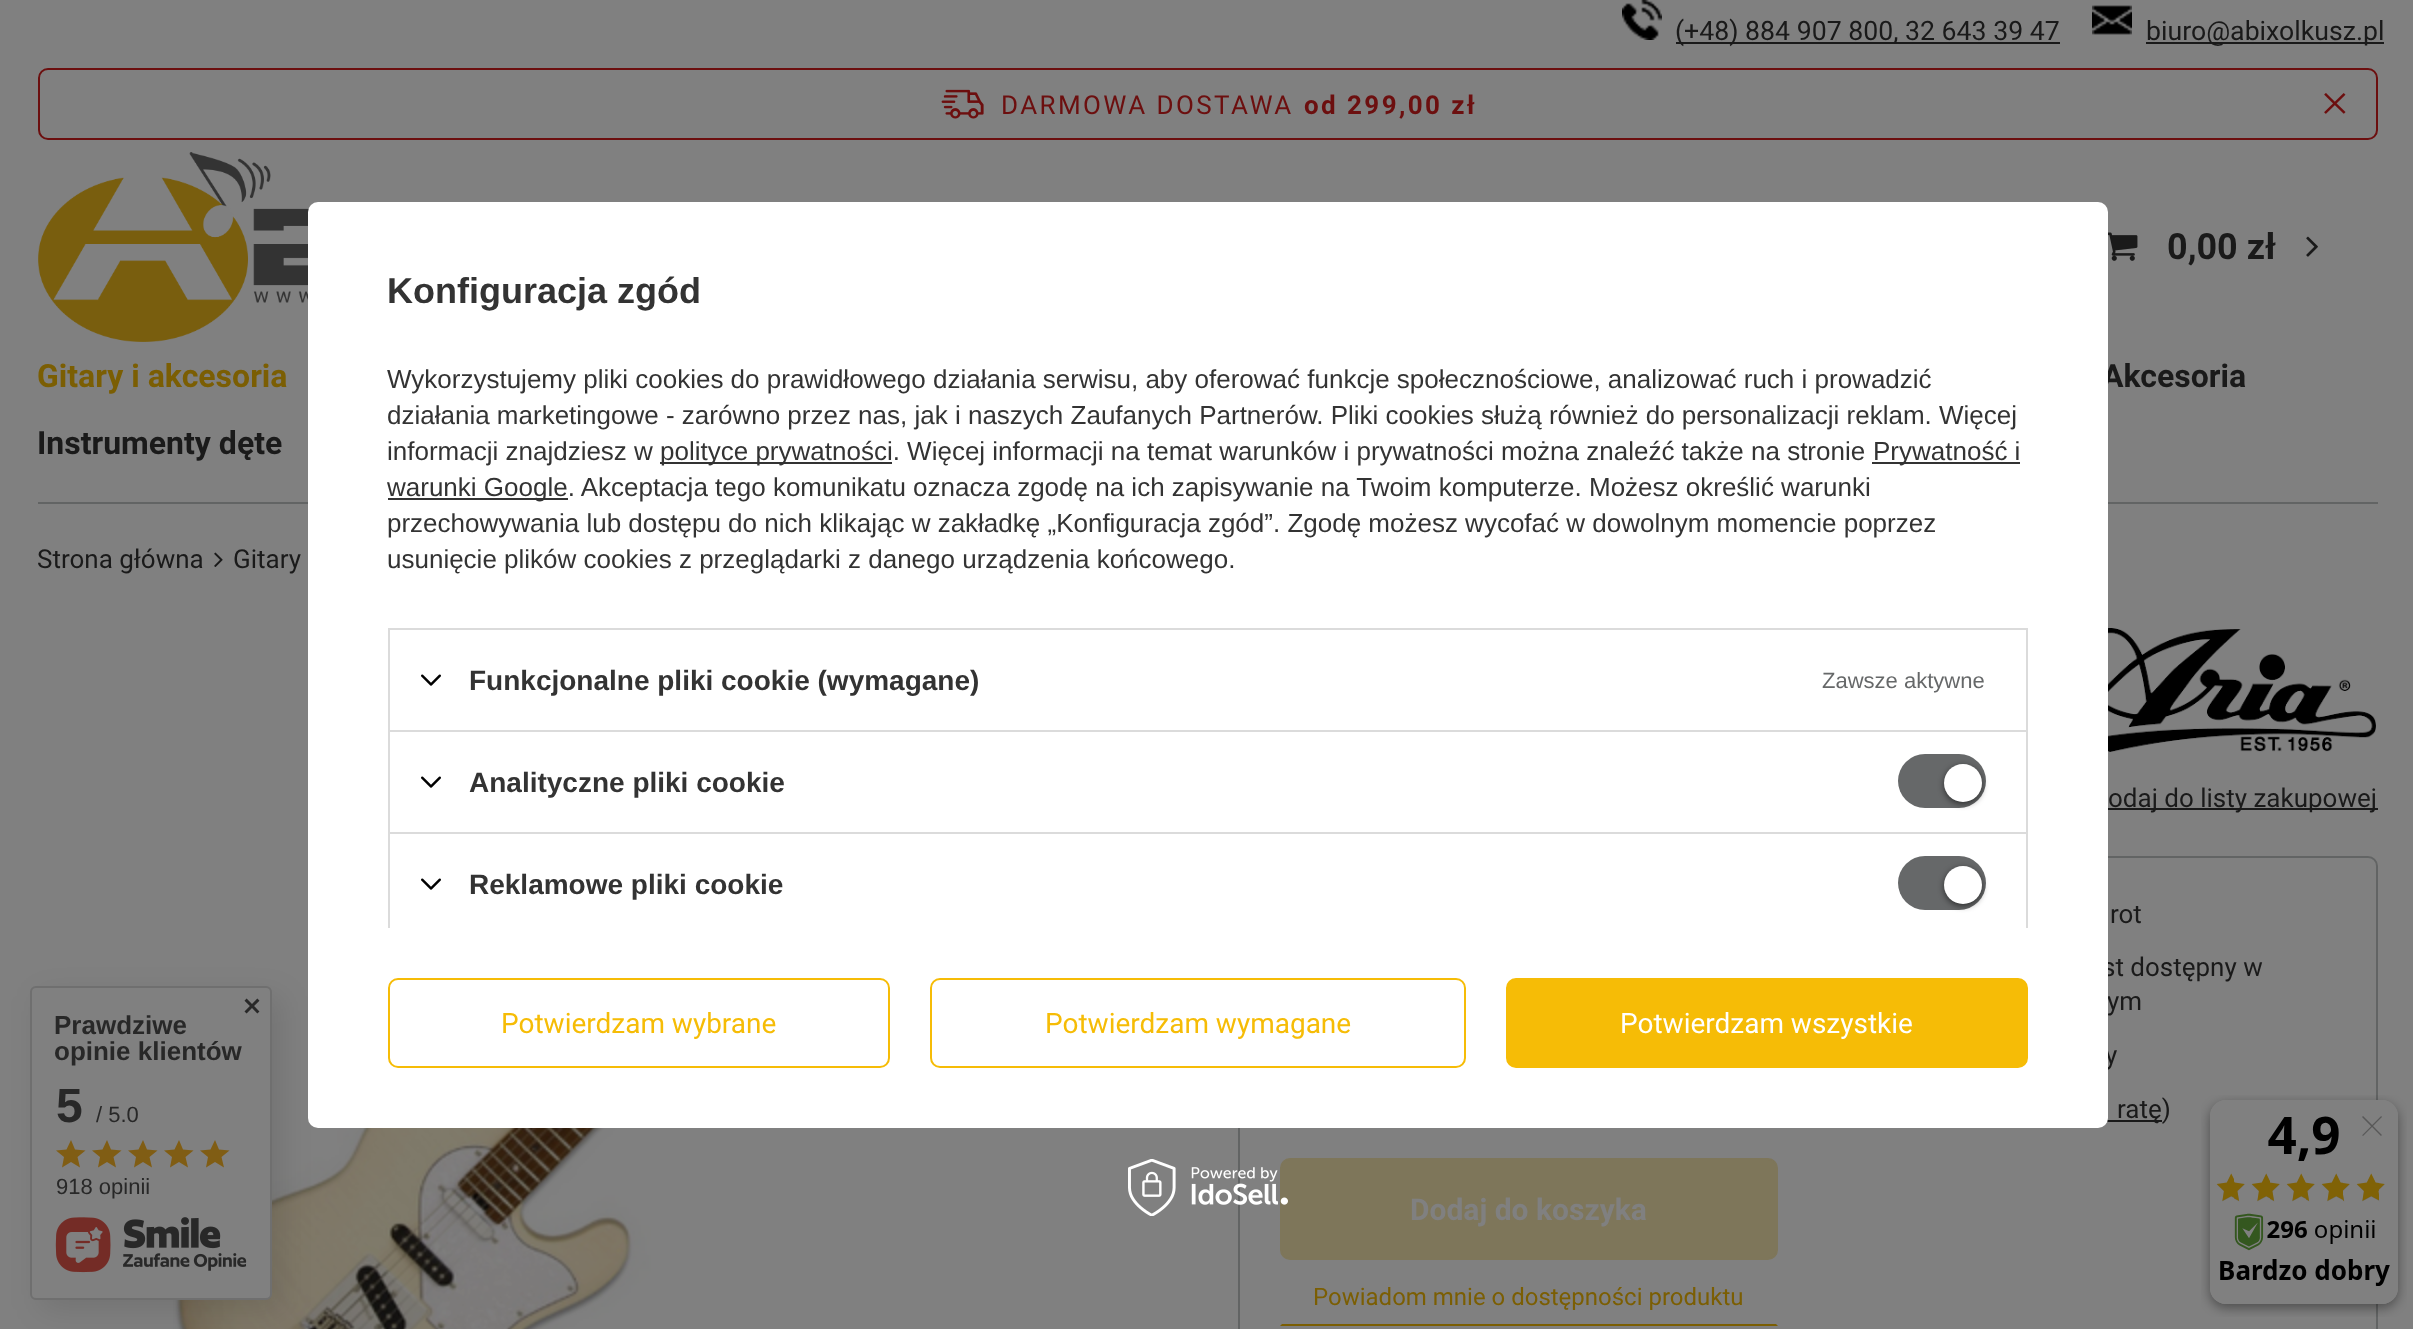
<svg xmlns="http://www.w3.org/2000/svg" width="2413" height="1329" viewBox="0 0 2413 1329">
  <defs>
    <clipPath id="clip1"><rect x="368" y="262" width="1680" height="666"/></clipPath>
  </defs>
  <rect width="100%" height="100%" fill="rgb(128,128,128)"/>
  <image x="1622" y="0" width="40" height="40" href="pic1.png"/>
  <rect x="1676" y="42" width="384" height="2" fill="rgb(26,26,26)"/>
  <text x="1675" y="40" font-family="Roboto" font-size="26.7" fill="rgb(26,26,26)">(+48) 884 907 800, 32 643 39 47</text>
  <image x="2092" y="5" width="40" height="30" href="pic2.png"/>
  <rect x="2146" y="42" width="238" height="2" fill="rgb(26,26,26)"/>
  <text x="2146" y="40" font-family="Roboto" font-size="26.7" fill="rgb(26,26,26)">biuro@abixolkusz.pl</text>
  <rect x="39" y="69" width="2338" height="70" rx="9" fill="none" stroke="rgb(108,15,15)" stroke-width="2"/>
  <image x="941" y="89" width="43" height="30" href="pic3.png"/>
  <text x="1001" y="114" font-family="Roboto" font-size="26" letter-spacing="2.4" fill="rgb(108,15,15)">DARMOWA DOSTAWA</text>
  <text x="1304" y="114" font-family="Roboto" font-size="26" font-weight="bold" letter-spacing="2.4" fill="rgb(108,15,15)">od 299,00 zł</text>
  <image x="2324" y="93" width="22" height="21" href="pic4.png"/>
  <image x="38" y="152" width="271" height="190" href="pic5.png"/>
  <image x="2108" y="232" width="30" height="29" href="pic6.png"/>
  <text x="2167" y="259" font-family="Roboto" font-size="36" font-weight="bold" fill="rgb(26,26,26)">0,00 zł</text>
  <image x="2306" y="236" width="12" height="21" href="pic7.png"/>
  <rect x="38" y="502" width="2340" height="2" fill="rgb(98,100,100)"/>
  <text x="37" y="387" font-family="Roboto" font-size="32" font-weight="bold" fill="rgb(123,94,3)">Gitary i akcesoria</text>
  <g font-family="Roboto" font-size="32" font-weight="bold" fill="rgb(26,26,26)">
    <text x="2102" y="387">Akcesoria</text>
    <text x="37" y="454">Instrumenty dęte</text>
  </g>
  <text x="37" y="568" font-family="Roboto" font-size="26" fill="rgb(26,26,26)">Strona główna</text>
  <image x="214" y="552" width="9" height="15" href="pic8.png"/>
  <text x="233" y="568" font-family="Roboto" font-size="26" fill="rgb(26,26,26)">Gitary</text>
  <image x="173" y="705" width="835" height="624" href="pic9.png"/>
  <image x="2108" y="628" width="268" height="124" href="pic10.png"/>
  <rect x="2108" y="808" width="270" height="2" fill="rgb(26,26,26)"/>
  <text x="2108" y="807" font-family="Roboto" font-size="26" fill="rgb(26,26,26)">odaj do listy zakupowej</text>
  <rect x="1239" y="857" width="1138" height="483" rx="9" fill="none" stroke="rgb(98,100,100)" stroke-width="2"/>
  <g font-family="Roboto" font-size="26" fill="rgb(26,26,26)">
    <text x="2110" y="923">rot</text>
    <text x="2102" y="976">st dostępny w</text>
    <text x="2107" y="1010">ym</text>
    <text x="2105" y="1064">y</text>
  </g>
  <rect x="2107" y="1120" width="55" height="2" fill="rgb(26,26,26)"/>
  <text x="2117" y="1118" font-family="Roboto" font-size="26" fill="rgb(26,26,26)">ratę)</text>
  <rect x="1281" y="1159" width="496" height="100" rx="9" fill="rgb(126,118,90)" stroke="rgb(126,118,90)" stroke-width="2"/>
  <text x="1410" y="1220" font-family="Roboto" font-size="30" font-weight="bold" fill="rgb(128,128,128)">Dodaj do koszyka</text>
  <path d="M1778 1326H1280L1282 1324H1776Z" fill="rgb(123,94,3)"/>
  <text x="1313" y="1305" font-family="Roboto" font-size="24" fill="rgb(123,94,3)">Powiadom mnie o dostępności produktu</text>
  <rect x="40" y="996" width="242" height="314" rx="6" fill="rgba(0,0,0,0.1)" filter="blur(15px)"/>
  <rect x="308" y="202" width="1800" height="926" rx="10" fill="rgb(255,255,255)"/>
  <text x="387" y="303" font-family="Liberation Sans" font-size="36" font-weight="bold" fill="rgb(51,51,51)">Konfiguracja zgód</text>
  <g font-family="Liberation Sans" font-size="26" fill="rgb(51,51,51)">
    <text>
      <tspan x="387" y="388">Wykorzystujemy pliki cookies do prawidłowego działania serwisu, aby oferować funkcje społecznościowe, analizować ruch i prowadzić</tspan>
      <tspan x="387" y="424">działania marketingowe - zarówno przez nas, jak i naszych Zaufanych Partnerów. Pliki cookies służą również do personalizacji reklam. Więcej</tspan>
      <tspan x="387" y="460">informacji znajdziesz w</tspan>
    </text>
  </g>
  <rect x="660" y="462" width="232" height="2" fill="rgb(51,51,51)"/>
  <text x="660" y="460" font-family="Liberation Sans" font-size="26" fill="rgb(51,51,51)">polityce prywatności. Więcej informacji na temat warunków i prywatności można znaleźć także na stronie</text>
  <rect x="1872" y="462" width="148" height="2" fill="rgb(51,51,51)"/>
  <text x="1873" y="460" font-family="Liberation Sans" font-size="26" fill="rgb(51,51,51)">Prywatność i</text>
  <rect x="388" y="498" width="180" height="2" fill="rgb(51,51,51)"/>
  <g font-family="Liberation Sans" font-size="26" fill="rgb(51,51,51)">
    <text>
      <tspan x="387" y="496">warunki Google. Akceptacja tego komunikatu oznacza zgodę na ich zapisywanie na Twoim komputerze. Możesz określić warunki</tspan>
      <tspan x="387" y="532">przechowywania lub dostępu do nich klikając w zakładkę „Konfiguracja zgód”. Zgodę możesz wycofać w dowolnym momencie poprzez</tspan>
      <tspan x="387" y="568">usunięcie plików cookies z przeglądarki z danego urządzenia końcowego.</tspan>
    </text>
  </g>
  <rect x="388" y="628" width="1640" height="2" fill="rgb(219,219,219)"/>
  <rect x="2026" y="628" width="2" height="102" fill="rgb(219,219,219)"/>
  <rect x="388" y="628" width="2" height="102" fill="rgb(219,219,219)"/>
  <image x="421" y="674" width="20" height="12" href="pic11.png"/>
  <text x="469" y="690" font-family="Liberation Sans" font-size="28" font-weight="bold" fill="rgb(51,51,51)">Funkcjonalne pliki cookie (wymagane)</text>
  <text x="1822" y="688" font-family="Liberation Sans" font-size="22" fill="rgb(102,104,105)">Zawsze aktywne</text>
  <rect x="388" y="730" width="1640" height="2" fill="rgb(219,219,219)"/>
  <rect x="2026" y="730" width="2" height="102" fill="rgb(219,219,219)"/>
  <rect x="388" y="730" width="2" height="102" fill="rgb(219,219,219)"/>
  <image x="421" y="776" width="20" height="12" href="pic11.png"/>
  <text x="469" y="792" font-family="Liberation Sans" font-size="28" font-weight="bold" fill="rgb(51,51,51)">Analityczne pliki cookie</text>
  <rect x="1898" y="754" width="88" height="54" rx="27" fill="rgb(102,104,105)"/>
  <rect x="1944" y="766" width="38" height="38" rx="19" fill="rgba(0,0,0,0.56)" filter="blur(3px)"/>
  <circle cx="1963" cy="783" r="19" fill="rgb(255,255,255)"/>
  <g clip-path="url(#clip1)">
    <rect x="389" y="833" width="1638" height="102" fill="none" stroke="rgb(219,219,219)" stroke-width="2"/>
  </g>
  <image x="421" y="878" width="20" height="12" href="pic11.png"/>
  <text x="469" y="894" font-family="Liberation Sans" font-size="28" font-weight="bold" fill="rgb(51,51,51)">Reklamowe pliki cookie</text>
  <rect x="1898" y="856" width="88" height="54" rx="27" fill="rgb(102,104,105)"/>
  <rect x="1944" y="868" width="38" height="38" rx="19" fill="rgba(0,0,0,0.56)" filter="blur(3px)"/>
  <circle cx="1963" cy="885" r="19" fill="rgb(255,255,255)"/>
  <rect x="389" y="979" width="500" height="88" rx="9" fill="none" stroke="rgb(246,188,6)" stroke-width="2"/>
  <text x="501" y="1033" font-family="Roboto" font-size="28" fill="rgb(246,188,6)">Potwierdzam wybrane</text>
  <rect x="931" y="979" width="534" height="88" rx="9" fill="none" stroke="rgb(246,188,6)" stroke-width="2"/>
  <text x="1045" y="1033" font-family="Roboto" font-size="28" fill="rgb(246,188,6)">Potwierdzam wymagane</text>
  <rect x="1507" y="979" width="520" height="88" rx="9" fill="rgb(246,188,6)" stroke="rgb(246,188,6)" stroke-width="2"/>
  <text x="1620" y="1033" font-family="Roboto" font-size="28" fill="rgb(255,255,255)">Potwierdzam wszystkie</text>
  <image x="1128" y="1159" width="160" height="57" href="pic12.png"/>
  <rect x="31" y="987" width="240" height="312" rx="5" fill="rgb(128,128,128)" stroke="rgb(111,111,111)" stroke-width="2"/>
  <image x="244" y="998" width="16" height="16" href="pic13.png"/>
  <g font-family="Liberation Sans" font-size="26" font-weight="bold" fill="rgb(40,40,40)">
    <text>
      <tspan x="54" y="1034">Prawdziwe</tspan>
      <tspan x="54" y="1060">opinie klientów</tspan>
    </text>
  </g>
  <text x="56" y="1122" font-family="Liberation Sans" font-size="48" font-weight="bold" fill="rgb(40,40,40)">5</text>
  <text x="96" y="1122" font-family="Liberation Sans" font-size="22" fill="rgb(40,40,40)">/ 5.0</text>
  <path d="M62 1167.5L64 1157L56 1150.5L66.5 1149.5L71 1140L75 1149.5L85.5 1150.5L77.5 1157L80 1167.5L71 1162Z" fill="rgb(128,93,20)"/>
  <path d="M98 1167.5L100 1157L92 1150.5L102.5 1149.5L107 1140L111 1149.5L121.5 1150.5L113.5 1157L116 1167.5L107 1162Z" fill="rgb(128,93,20)"/>
  <path d="M134 1167.5L136 1157L128 1150.5L138.5 1149.5L143 1140L147 1149.5L157.5 1150.5L149.5 1157L152 1167.5L143 1162Z" fill="rgb(128,93,20)"/>
  <path d="M170 1167.5L172 1157L164 1150.5L174.5 1149.5L179 1140L183 1149.5L193.5 1150.5L185.5 1157L188 1167.5L179 1162Z" fill="rgb(128,93,20)"/>
  <path d="M206 1167.5L208 1157L200 1150.5L210.5 1149.5L215 1140L219 1149.5L229.5 1150.5L221.5 1157L224 1167.5L215 1162Z" fill="rgb(128,93,20)"/>
  <text x="56" y="1194" font-family="Liberation Sans" font-size="22" fill="rgb(40,40,40)">918 opinii</text>
  <image x="55" y="1217" width="192" height="56" href="pic14.png"/>
  <image x="2201" y="1095" width="206" height="222" href="pic15.png"/>
</svg>
